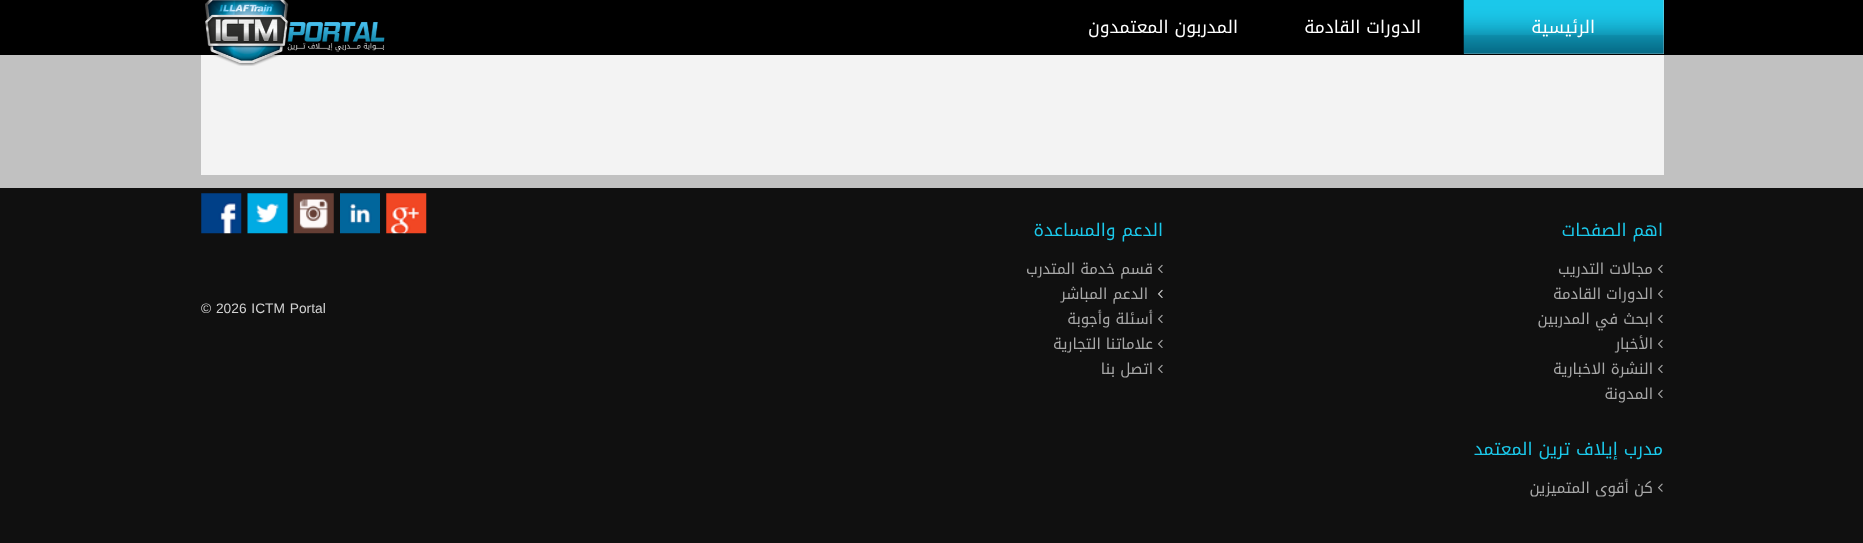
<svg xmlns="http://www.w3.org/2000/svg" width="1863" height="543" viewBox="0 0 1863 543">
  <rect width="100%" height="100%" fill="rgb(193,193,193)"/>
  <rect x="0" y="0" width="1863" height="55" fill="rgb(0,0,0)"/>
  <rect x="1464" y="0" width="200" height="54" fill="rgb(229,229,229)"/>
  <image x="1463" y="0" width="201" height="54" href="pic1.png"/>
  <g font-family="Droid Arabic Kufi" font-size="17.5" direction="rtl" fill="rgb(255,255,255)">
    <text x="1595" y="33">الرئيسية</text>
    <text x="1421" y="33">الدورات القادمة</text>
    <text x="1238" y="33">المدربون المعتمدون</text>
  </g>
  <rect x="201" y="55" width="1463" height="120" fill="rgb(243,243,243)"/>
  <image x="205" y="0" width="180" height="66" href="pic2.png"/>
  <rect x="0" y="188" width="1863" height="355" fill="rgb(16,16,16)"/>
  <text x="1663" y="236" font-family="Droid Arabic Kufi" font-size="17.5" direction="rtl" fill="rgb(27,200,234)">اهم الصفحات</text>
  <image x="1658" y="264" width="5" height="9" href="pic3.png"/>
  <text x="1653" y="274" font-family="Droid Arabic Kufi" font-size="15" direction="rtl" fill="rgb(168,168,168)">مجالات التدريب</text>
  <image x="1658" y="289" width="5" height="9" href="pic3.png"/>
  <text x="1653" y="299" font-family="Droid Arabic Kufi" font-size="15" direction="rtl" fill="rgb(168,168,168)">الدورات القادمة</text>
  <image x="1658" y="314" width="5" height="9" href="pic3.png"/>
  <text x="1653" y="324" font-family="Droid Arabic Kufi" font-size="15" direction="rtl" fill="rgb(168,168,168)">ابحث في المدربين</text>
  <image x="1658" y="339" width="5" height="9" href="pic3.png"/>
  <text x="1653" y="349" font-family="Droid Arabic Kufi" font-size="15" direction="rtl" fill="rgb(168,168,168)">الأخبار</text>
  <image x="1658" y="364" width="5" height="9" href="pic3.png"/>
  <text x="1653" y="374" font-family="Droid Arabic Kufi" font-size="15" direction="rtl" fill="rgb(168,168,168)">النشرة الاخبارية</text>
  <image x="1658" y="389" width="5" height="9" href="pic3.png"/>
  <text x="1653" y="399" font-family="Droid Arabic Kufi" font-size="15" direction="rtl" fill="rgb(168,168,168)">المدونة</text>
  <text x="1663" y="455" font-family="Droid Arabic Kufi" font-size="17.5" direction="rtl" fill="rgb(27,200,234)">مدرب إيلاف ترين المعتمد</text>
  <image x="1657" y="483" width="6" height="9" href="pic4.png"/>
  <text x="1653" y="493" font-family="Droid Arabic Kufi" font-size="15" direction="rtl" fill="rgb(168,168,168)">كن أقوى المتميزين</text>
  <text x="1163" y="236" font-family="Droid Arabic Kufi" font-size="17.5" direction="rtl" fill="rgb(27,200,234)">الدعم والمساعدة</text>
  <image x="1158" y="264" width="5" height="9" href="pic3.png"/>
  <text x="1153" y="274" font-family="Droid Arabic Kufi" font-size="15" direction="rtl" fill="rgb(168,168,168)">قسم خدمة المتدرب</text>
  <image x="1157" y="289" width="6" height="9" href="pic5.png"/>
  <text x="1148" y="299" font-family="Droid Arabic Kufi" font-size="15" direction="rtl" fill="rgb(168,168,168)">الدعم المباشر</text>
  <image x="1158" y="314" width="5" height="9" href="pic3.png"/>
  <text x="1153" y="324" font-family="Droid Arabic Kufi" font-size="15" direction="rtl" fill="rgb(168,168,168)">أسئلة وأجوبة</text>
  <image x="1158" y="339" width="5" height="9" href="pic3.png"/>
  <text x="1153" y="349" font-family="Droid Arabic Kufi" font-size="15" direction="rtl" fill="rgb(168,168,168)">علاماتنا التجارية</text>
  <image x="1158" y="364" width="5" height="9" href="pic3.png"/>
  <text x="1153" y="374" font-family="Droid Arabic Kufi" font-size="15" direction="rtl" fill="rgb(168,168,168)">اتصل بنا</text>
  <image x="386" y="193" width="41" height="41" href="pic6.png"/>
  <image x="340" y="193" width="40" height="41" href="pic7.png"/>
  <image x="293" y="193" width="41" height="41" href="pic8.png"/>
  <image x="247" y="193" width="41" height="41" href="pic9.png"/>
  <image x="201" y="193" width="41" height="41" href="pic10.png"/>
  <text x="201" y="313" word-spacing="1" font-family="Liberation Sans" font-size="13.75" fill="rgb(210,210,210)">© 2026 ICTM Portal</text>
</svg>
